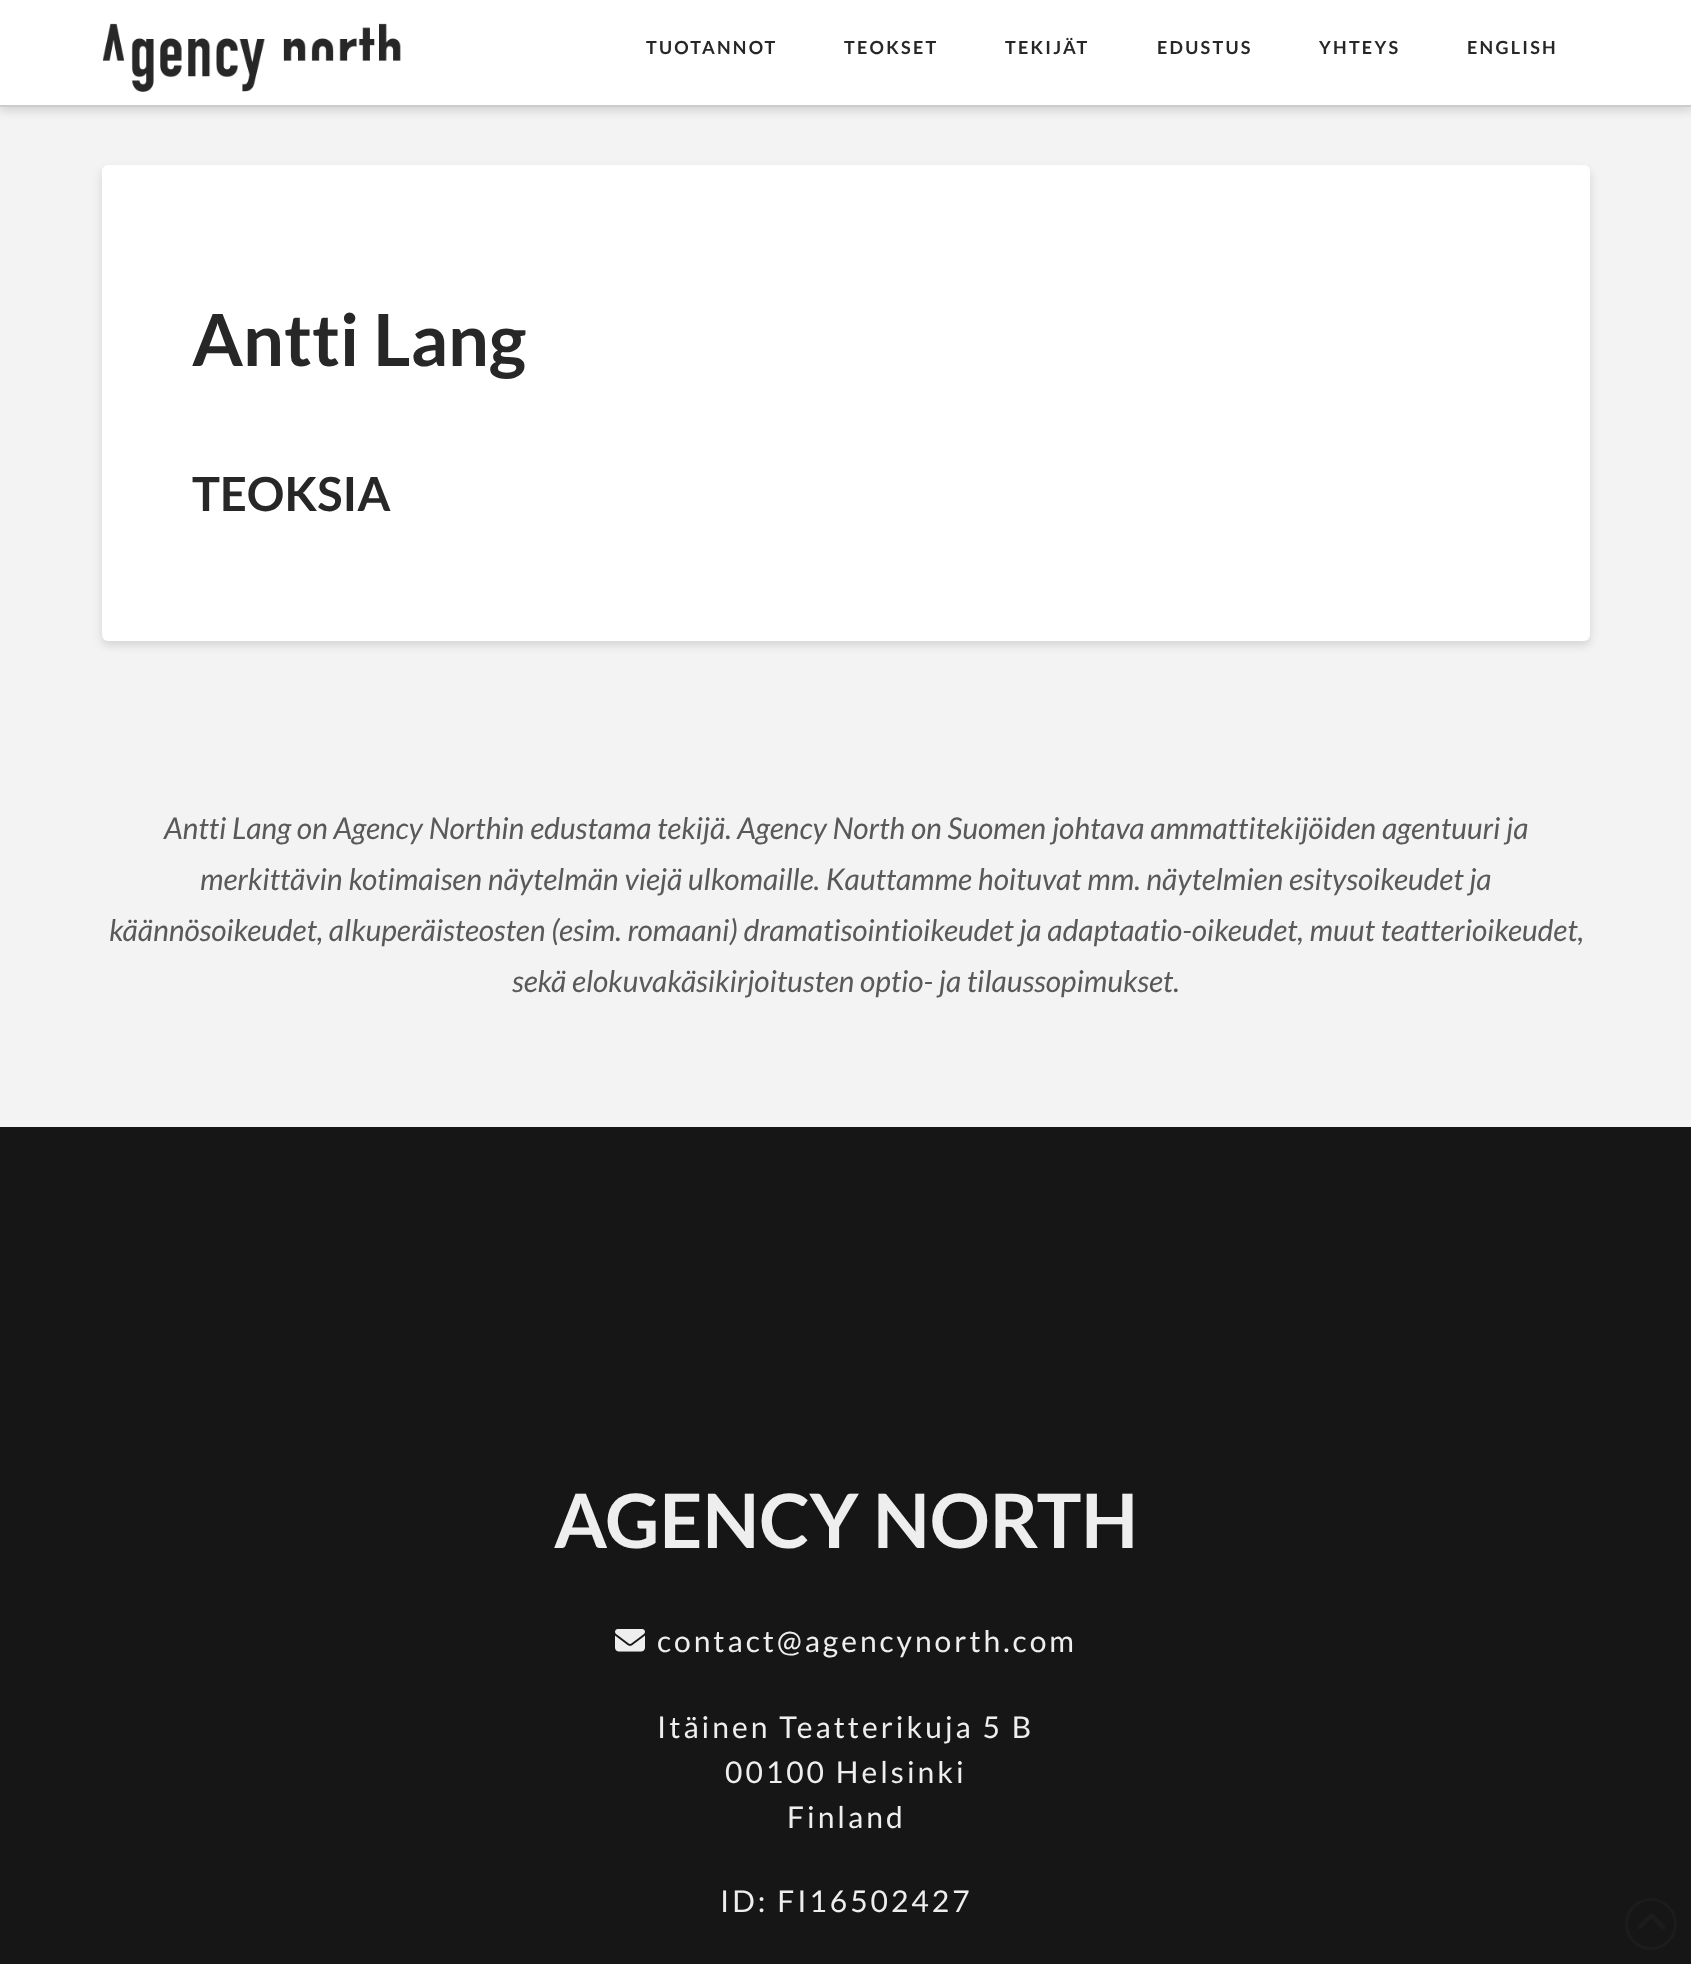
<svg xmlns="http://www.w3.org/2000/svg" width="1691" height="1964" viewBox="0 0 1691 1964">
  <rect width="100%" height="100%" fill="rgb(243,243,243)"/>
  <rect x="0" y="5" width="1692" height="106" fill="rgba(0,0,0,0.13)" filter="blur(5px)"/>
  <rect x="0" y="0" width="1691" height="105" fill="rgb(255,255,255)"/>
  <rect x="0" y="105" width="1691" height="2" fill="rgb(204,204,204)"/>
  <image x="102" y="23" width="299" height="69" href="pic1.png"/>
  <g font-family="Lato" font-size="18" font-weight="bold" letter-spacing="2.25" fill="rgb(39,39,39)">
    <text x="646" y="54">TUOTANNOT</text>
    <text x="844" y="54">TEOKSET</text>
    <text x="1005" y="54">TEKIJÄT</text>
    <text x="1157" y="54">EDUSTUS</text>
    <text x="1319" y="54">YHTEYS</text>
    <text x="1467" y="54">ENGLISH</text>
  </g>
  <rect x="102" y="170" width="1488" height="475" rx="6" fill="rgba(0,0,0,0.13)" filter="blur(5px)"/>
  <rect x="102" y="165" width="1488" height="476" rx="6" fill="rgb(255,255,255)"/>
  <text x="192" y="366" font-family="Lato" font-size="72" font-weight="bold" fill="rgb(39,39,39)">Antti Lang</text>
  <text x="192" y="511" font-family="Lato" font-size="47" font-weight="bold" fill="rgb(39,39,39)">TEOKSIA</text>
  <g font-family="Lato" font-size="30" font-style="italic" fill="rgb(89,89,89)">
    <text x="164" y="839">Antti Lang on Agency Northin edustama tekijä. Agency North on Suomen johtava ammattitekijöiden agentuuri ja</text>
    <text x="200" y="890">merkittävin kotimaisen näytelmän viejä ulkomaille. Kauttamme hoituvat mm. näytelmien esitysoikeudet ja</text>
    <text x="109" y="941">käännösoikeudet, alkuperäisteosten (esim. romaani) dramatisointioikeudet ja adaptaatio-oikeudet, muut teatterioikeudet,</text>
    <text x="512" y="992">sekä elokuvakäsikirjoitusten optio- ja tilaussopimukset.</text>
  </g>
  <rect x="0" y="1127" width="1691" height="837" fill="rgb(22,22,22)"/>
  <text x="554" y="1548" font-family="Lato" font-size="75" font-weight="bold" fill="rgb(238,238,238)">AGENCY NORTH</text>
  <image x="615" y="1629" width="30" height="23" href="pic2.png"/>
  <g font-family="Lato" font-size="30" letter-spacing="3" fill="rgb(238,238,238)">
    <text x="657" y="1652">contact@agencynorth.com</text>
    <text x="657" y="1738">Itäinen Teatterikuja 5 B</text>
    <text x="725" y="1783">00100 Helsinki</text>
    <text x="787" y="1828">Finland</text>
    <text x="720" y="1912">ID: FI16502427</text>
  </g>
  <circle cx="1651" cy="1924" r="24.5" fill="none" stroke="rgb(28,28,28)" stroke-width="3"/>
  <image x="1638" y="1913" width="27" height="16" href="pic3.png"/>
</svg>
